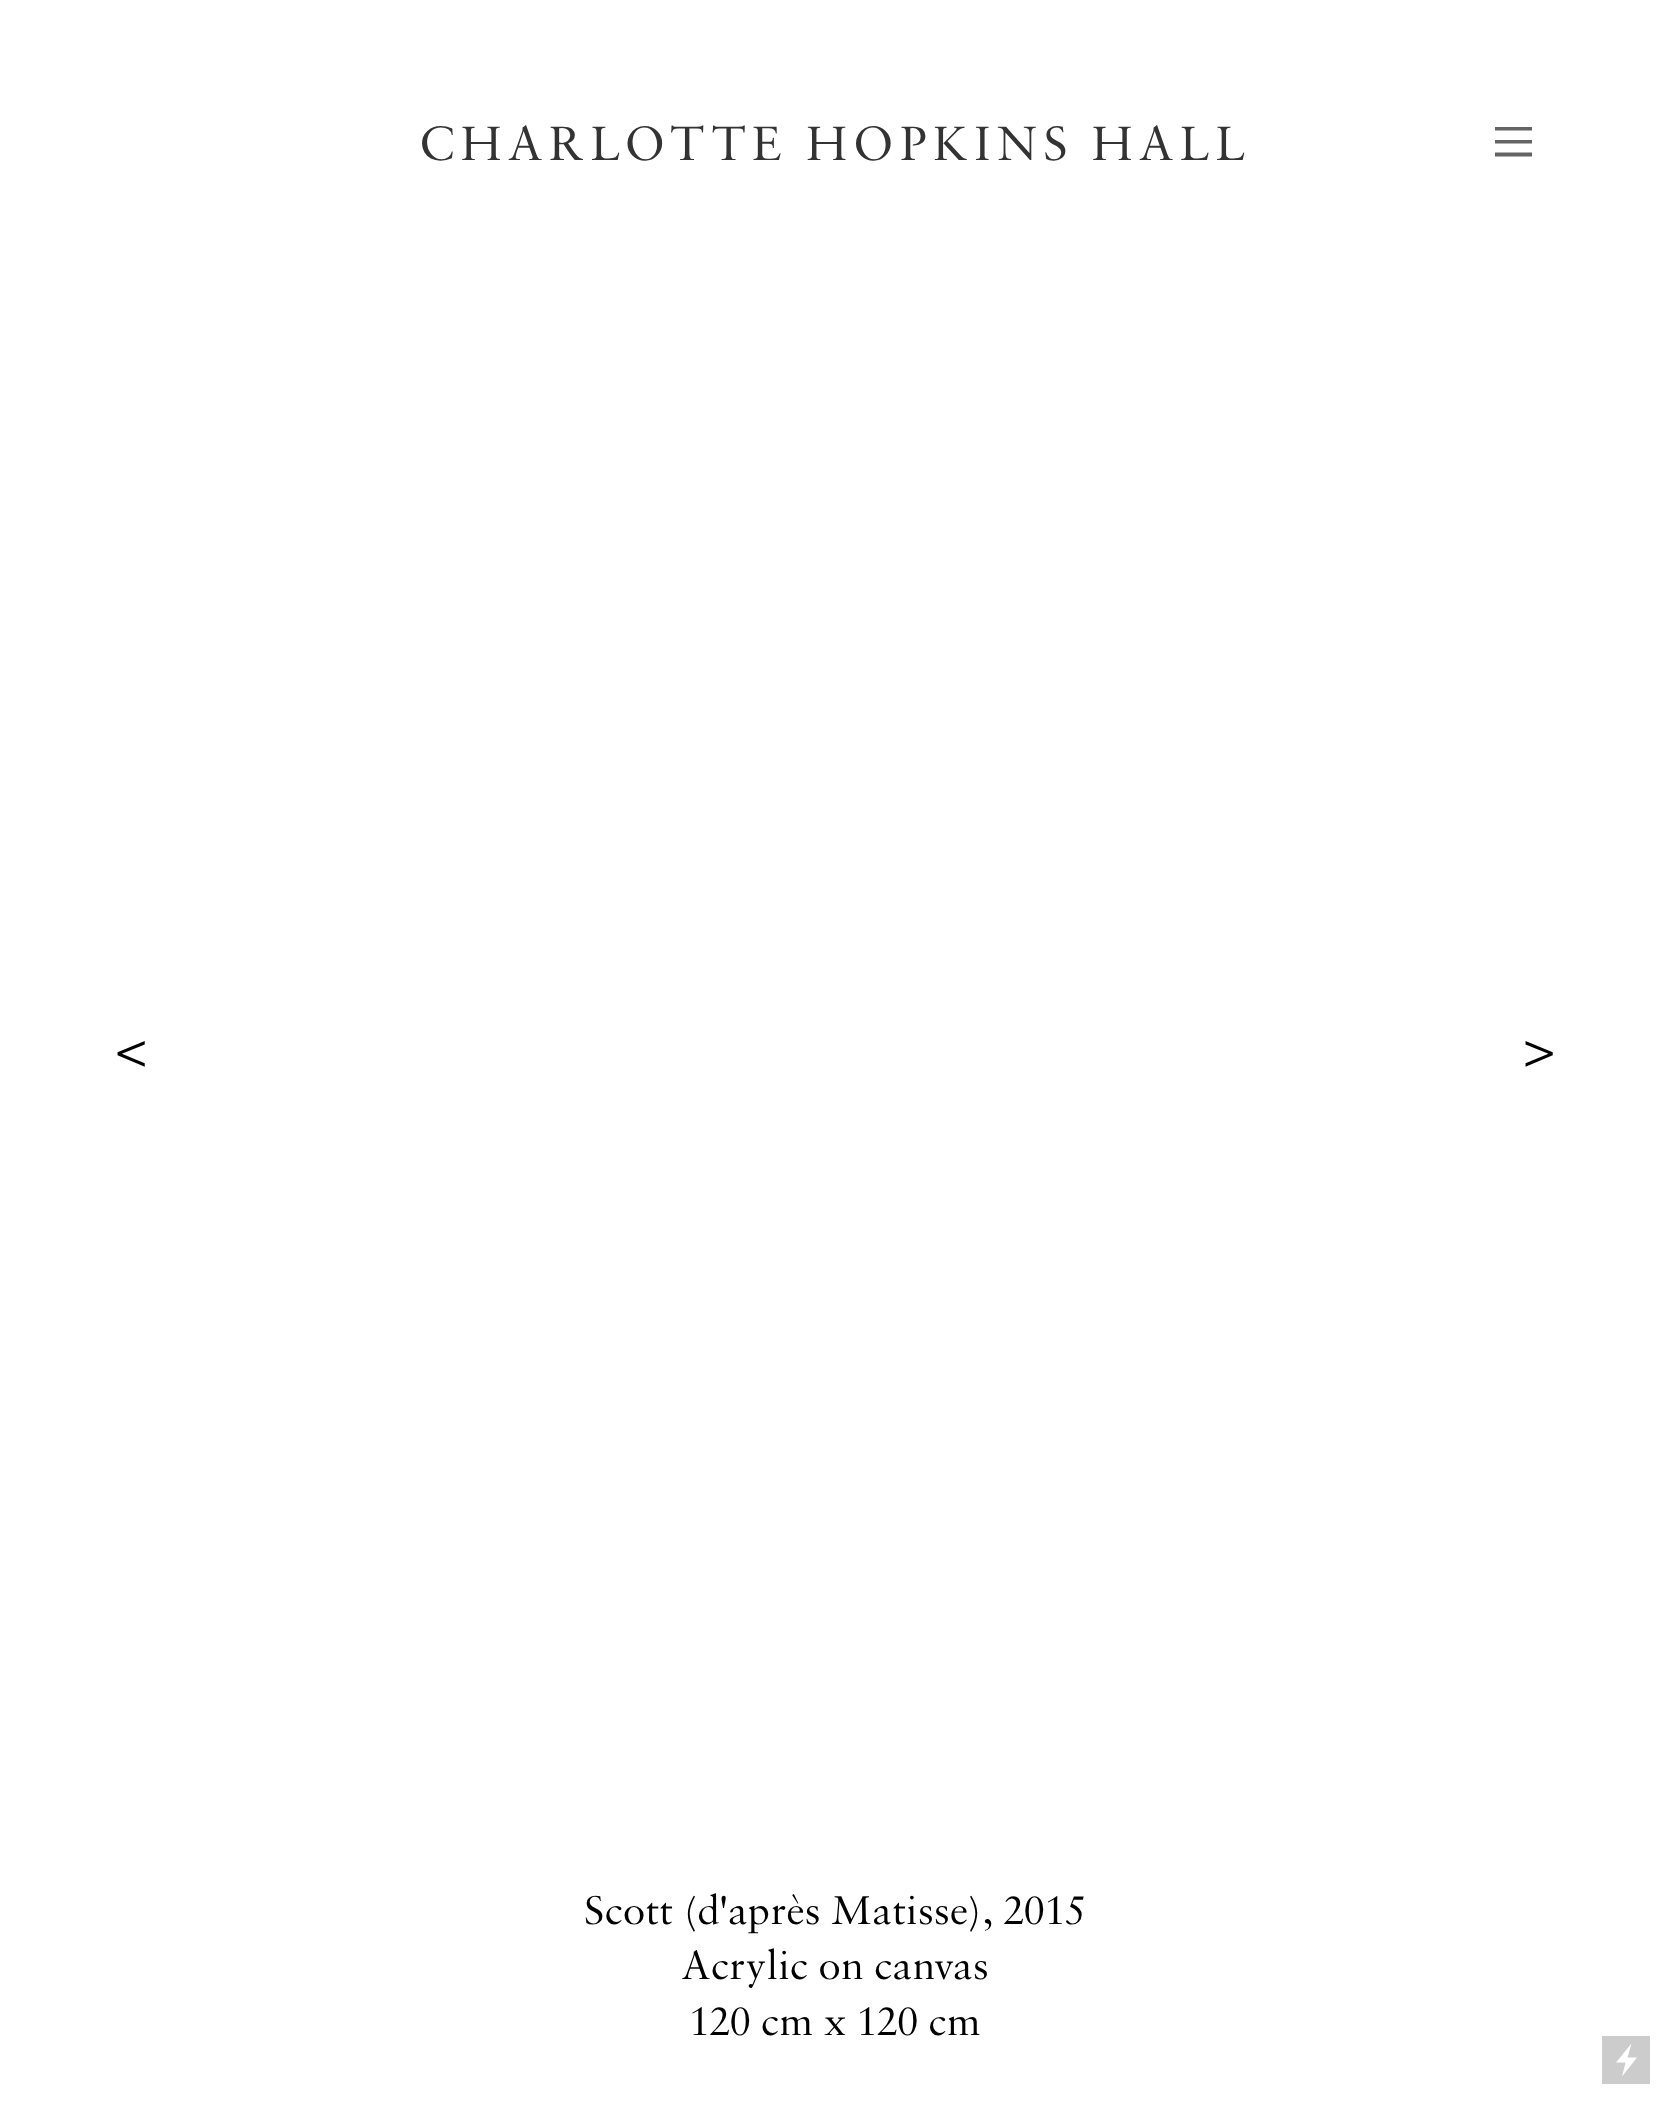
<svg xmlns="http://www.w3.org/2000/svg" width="1670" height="2104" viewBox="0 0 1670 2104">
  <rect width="100%" height="100%" fill="rgb(255,255,255)"/>
  <text x="419" y="160" font-family="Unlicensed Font" font-size="51.3" letter-spacing="5.7" fill="rgb(51,51,51)">CHARLOTTE HOPKINS HALL</text>
  <g font-family="Unlicensed Font" font-size="51.3" fill="rgb(0,0,0)">
    <text x="114" y="1070">&lt;</text>
    <text x="1522" y="1070">&gt;</text>
  </g>
  <g font-family="Unlicensed Font" font-size="42.75" fill="rgb(0,0,0)">
    <text x="584" y="1924">Scott (d'après Matisse), 2015</text>
    <text x="681" y="1979">Acrylic on canvas</text>
    <text x="689" y="2035">120 cm x 120 cm</text>
  </g>
  <path d="M1532 127V130.5H1495V127ZM1532 140V143.5H1495V140ZM1532 152.5V156.5H1495V152.5Z" fill="rgb(100,100,100)"/>
  <rect x="1602" y="2036" width="48" height="48" fill="rgb(204,204,204)"/>
  <path d="M1637 2057.5H1627.5L1631.5 2043.5L1616 2062.5H1625.5L1622 2076.5Z" fill="rgb(255,255,255)"/>
</svg>
